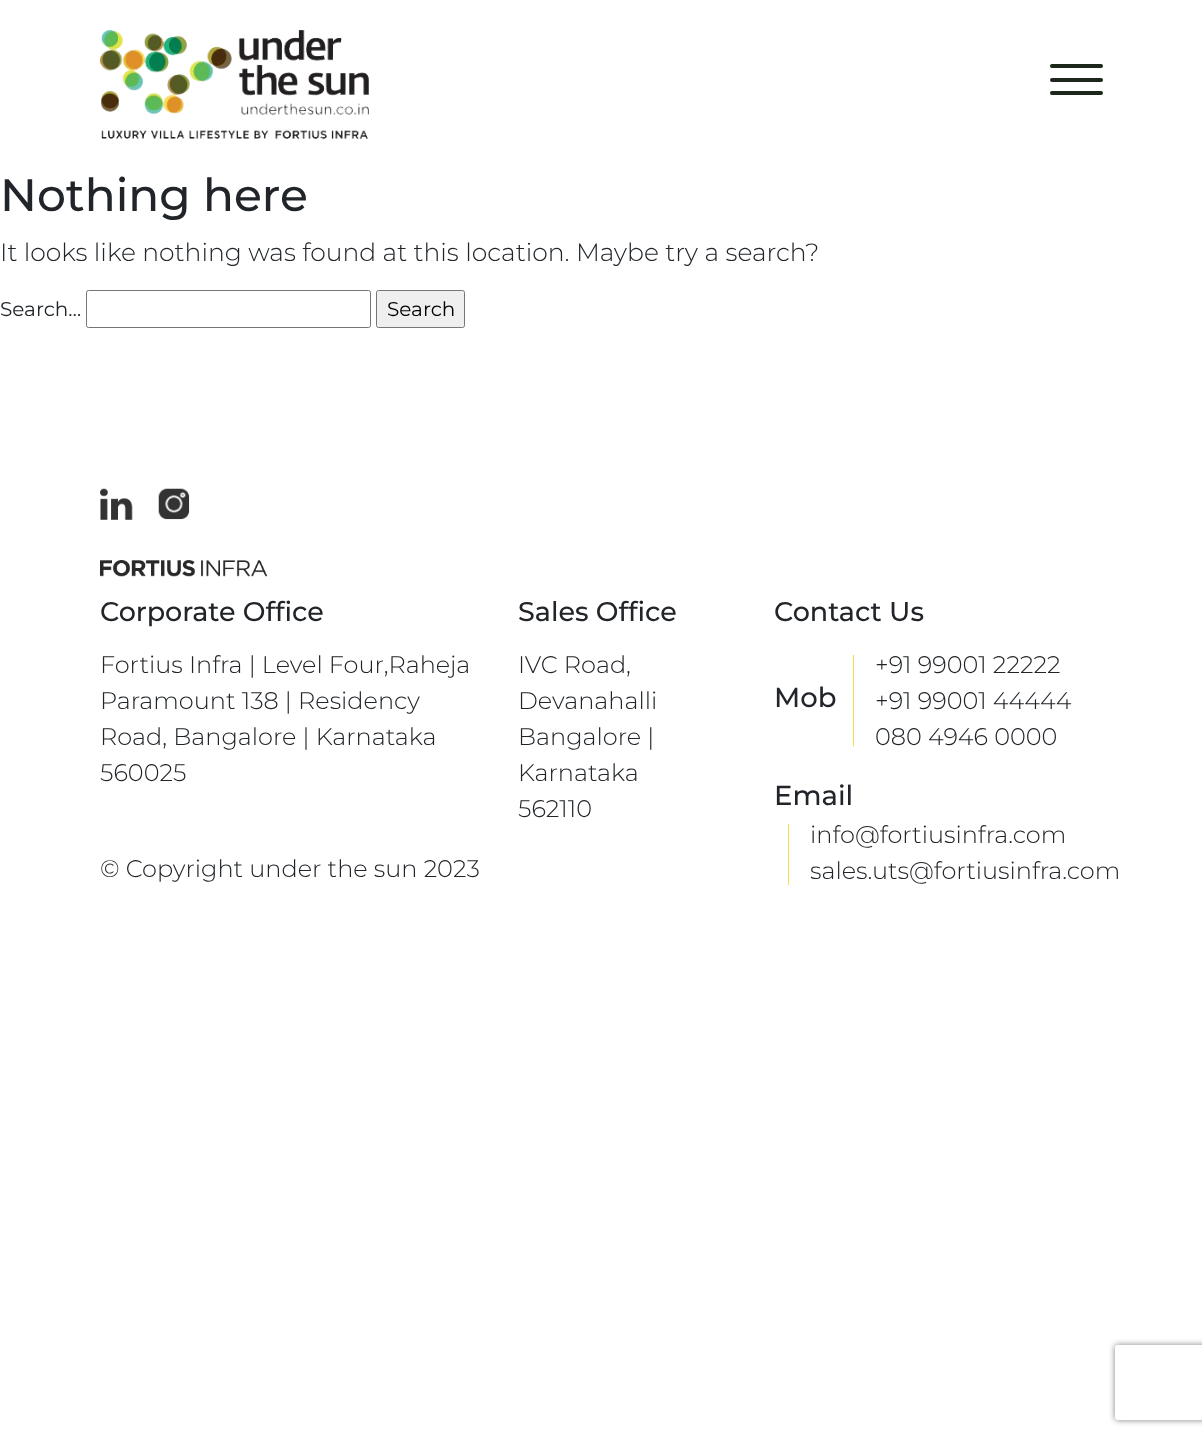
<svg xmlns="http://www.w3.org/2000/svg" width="1202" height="1437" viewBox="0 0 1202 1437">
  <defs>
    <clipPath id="clip1"><path d="M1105 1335H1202V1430H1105ZM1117.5 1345H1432.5C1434 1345 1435 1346 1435 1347.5V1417.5C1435 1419 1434 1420 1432.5 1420H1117.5C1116 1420 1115 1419 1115 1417.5V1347.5C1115 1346 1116 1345 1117.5 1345Z" clip-rule="evenodd"/></clipPath>
  </defs>
  <rect width="100%" height="100%" fill="rgb(255,255,255)"/>
  <image x="100" y="30" width="269" height="109" href="pic1.png"/>
  <rect x="1050" y="64" width="53" height="4" rx="2" fill="rgb(29,38,26)"/>
  <rect x="1050" y="78" width="53" height="4" rx="2" fill="rgb(29,38,26)"/>
  <rect x="1050" y="91" width="53" height="4" rx="2" fill="rgb(29,38,26)"/>
  <text x="0" y="211" font-family="Montserrat" font-size="45.5" font-weight="500" fill="rgb(33,37,41)">Nothing here</text>
  <text x="0" y="261" font-family="Montserrat" font-size="25" font-weight="300" fill="rgb(33,37,41)">It looks like nothing was found at this location. Maybe try a search?</text>
  <text x="0" y="316" font-family="Montserrat" font-size="20" fill="rgb(33,37,41)">Search…</text>
  <rect x="86.5" y="290.5" width="284" height="37" rx="2" fill="none" stroke="rgb(118,118,118)"/>
  <rect x="376.5" y="290.5" width="88" height="37" rx="2" fill="rgb(239,239,239)" stroke="rgb(118,118,118)"/>
  <text x="387" y="316" font-family="Montserrat" font-size="20" fill="rgb(0,0,0)">Search</text>
  <image x="100" y="488" width="33" height="32" href="pic2.png"/>
  <image x="158" y="488" width="32" height="32" href="pic3.png"/>
  <image x="100" y="560" width="168" height="17" href="pic4.png"/>
  <text x="100" y="621" font-family="Montserrat" font-size="27" font-weight="500" fill="rgb(33,37,41)">Corporate Office</text>
  <g font-family="Montserrat" font-size="24" font-weight="300" fill="rgb(33,37,41)">
    <text>
      <tspan x="100" y="673">Fortius Infra | Level Four,Raheja</tspan>
      <tspan x="100" y="709">Paramount 138 | Residency</tspan>
      <tspan x="100" y="745">Road, Bangalore | Karnataka</tspan>
      <tspan x="100" y="781">560025</tspan>
    </text>
    <text x="100" y="877">© Copyright under the sun 2023</text>
  </g>
  <text x="518" y="621" font-family="Montserrat" font-size="27" font-weight="500" fill="rgb(33,37,41)">Sales Office</text>
  <g font-family="Montserrat" font-size="24" font-weight="300" fill="rgb(33,37,41)">
    <text>
      <tspan x="518" y="673">IVC Road,</tspan>
      <tspan x="518" y="709">Devanahalli</tspan>
      <tspan x="518" y="745">Bangalore |</tspan>
      <tspan x="518" y="781">Karnataka</tspan>
      <tspan x="518" y="817">562110</tspan>
    </text>
  </g>
  <text x="774" y="621" font-family="Montserrat" font-size="27" font-weight="500" fill="rgb(33,37,41)">Contact Us</text>
  <text x="774" y="707" font-family="Montserrat" font-size="27.5" font-weight="500" fill="rgb(33,37,41)">Mob</text>
  <rect x="853" y="655" width="1" height="91" fill="rgb(251,221,74)"/>
  <g font-family="Montserrat" font-size="24" font-weight="300" fill="rgb(33,37,41)">
    <text>
      <tspan x="875" y="673">+91 99001 22222</tspan>
      <tspan x="875" y="709">+91 99001 44444</tspan>
      <tspan x="875" y="745">080 4946 0000</tspan>
    </text>
  </g>
  <text x="774" y="805" font-family="Montserrat" font-size="27.5" font-weight="500" fill="rgb(33,37,41)">Email</text>
  <rect x="788" y="824" width="1" height="61" fill="rgb(251,221,74)"/>
  <g font-family="Montserrat" font-size="24" font-weight="300" fill="rgb(33,37,41)">
    <text>
      <tspan x="810" y="843">info@fortiusinfra.com</tspan>
      <tspan x="810" y="879">sales.uts@fortiusinfra.com</tspan>
    </text>
  </g>
  <g clip-path="url(#clip1)">
    <rect x="1115" y="1345" width="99" height="75" rx="2.5" fill="rgb(128,128,128)" filter="blur(3px)"/>
  </g>
</svg>
